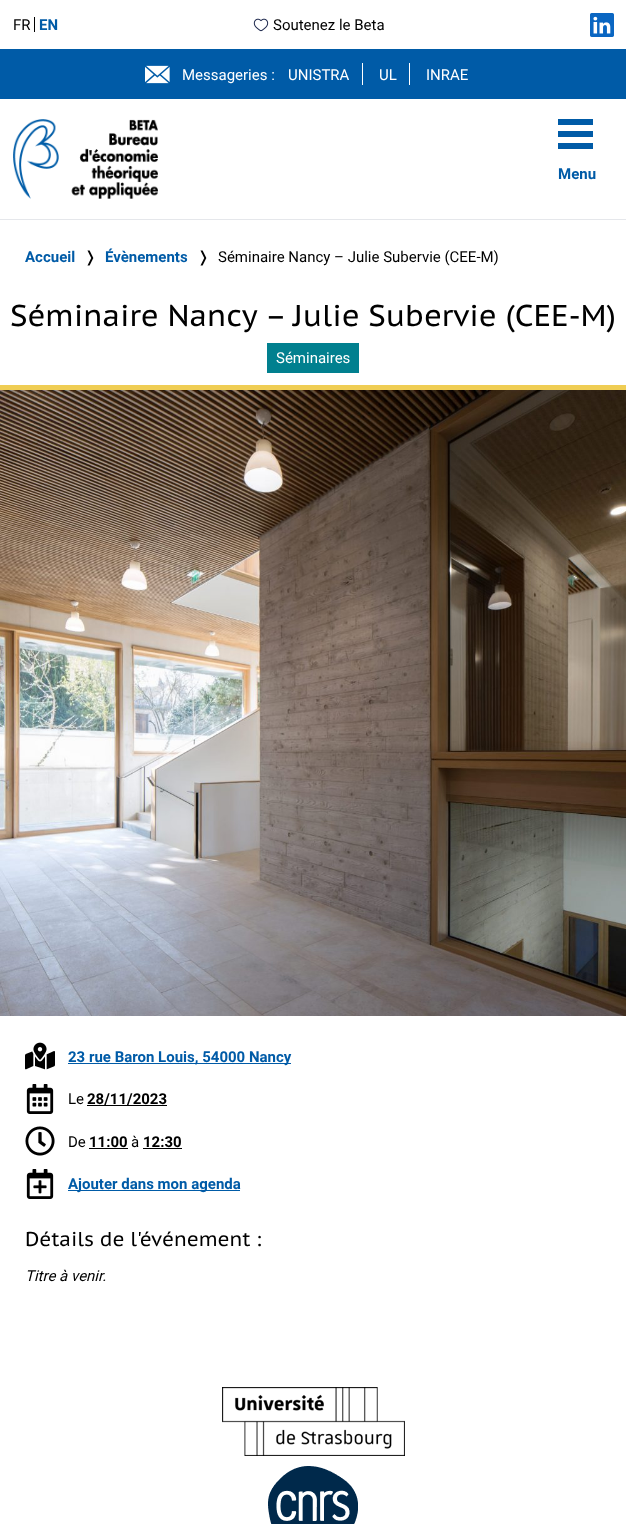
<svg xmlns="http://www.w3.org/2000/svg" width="626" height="1524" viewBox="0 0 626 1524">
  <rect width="100%" height="100%" fill="rgb(255,255,255)"/>
  <rect x="0" y="219" width="626" height="1" fill="rgb(229,231,235)"/>
  <rect x="34" y="17" width="1" height="15" fill="rgb(0,0,0)"/>
  <text x="13" y="30" font-family="Roboto" font-size="15" fill="rgb(0,0,0)">FR</text>
  <text x="39" y="30" font-family="Roboto" font-size="15" font-weight="bold" fill="rgb(0,91,167)">EN</text>
  <image x="253" y="18" width="16" height="14" href="pic1.png"/>
  <text x="273" y="30" font-family="Roboto" font-size="15" fill="rgb(0,0,0)">Soutenez le Beta</text>
  <image x="590" y="13" width="24" height="24" href="pic2.png"/>
  <rect x="0" y="49" width="626" height="50" fill="rgb(0,91,167)"/>
  <image x="145" y="65" width="25" height="19" href="pic3.png"/>
  <text x="182" y="80" font-family="Roboto" font-size="15" fill="rgb(255,255,255)">Messageries :</text>
  <rect x="362" y="63" width="1" height="22" fill="rgb(255,255,255)"/>
  <text x="288" y="80" font-family="Roboto" font-size="15" fill="rgb(255,255,255)">UNISTRA</text>
  <rect x="409" y="63" width="1" height="22" fill="rgb(255,255,255)"/>
  <g font-family="Roboto" font-size="15" fill="rgb(255,255,255)">
    <text x="379" y="80">UL</text>
    <text x="426" y="80">INRAE</text>
  </g>
  <image x="13" y="119" width="145" height="80" href="pic4.png"/>
  <rect x="558" y="119" width="35" height="6" fill="rgb(0,91,167)"/>
  <rect x="558" y="131" width="35" height="6" fill="rgb(0,91,167)"/>
  <rect x="558" y="143" width="35" height="6" fill="rgb(0,91,167)"/>
  <g font-family="Roboto" font-size="15" font-weight="bold" fill="rgb(0,91,167)">
    <text x="558" y="179">Menu</text>
    <text x="25" y="262">Accueil</text>
  </g>
  <text x="84" y="262" font-family="DejaVu Sans" font-size="15" fill="rgb(0,0,0)">❭</text>
  <text x="105" y="262" font-family="Roboto" font-size="15" font-weight="bold" fill="rgb(0,91,167)">Évènements</text>
  <text x="197" y="262" font-family="DejaVu Sans" font-size="15" fill="rgb(0,0,0)">❭</text>
  <text x="218" y="262" font-family="Roboto" font-size="15" fill="rgb(0,0,0)">Séminaire Nancy – Julie Subervie (CEE-M)</text>
  <rect x="0" y="385" width="626" height="5" fill="rgb(239,205,84)"/>
  <text x="10" y="326" font-family="PT Sans Caption" font-size="30" fill="rgb(0,0,0)">Séminaire Nancy – Julie Subervie (CEE-M)</text>
  <rect x="267" y="343" width="92" height="30" fill="rgb(1,128,143)"/>
  <text x="276" y="363" font-family="Roboto" font-size="15" fill="rgb(255,255,255)">Séminaires</text>
  <image x="0" y="390" width="626" height="626" href="pic5.png"/>
  <image x="25" y="1042" width="30" height="28" href="pic6.png"/>
  <rect x="68" y="1063" width="223" height="1" fill="rgb(0,91,167)"/>
  <text x="68" y="1062" font-family="Roboto" font-size="15" font-weight="bold" fill="rgb(0,91,167)">23 rue Baron Louis, 54000 Nancy</text>
  <image x="26" y="1084" width="28" height="30" href="pic7.png"/>
  <text x="68" y="1104" font-family="Roboto" font-size="15" fill="rgb(0,0,0)">Le</text>
  <text x="87" y="1104" font-family="Roboto" font-size="15" font-weight="bold" fill="rgb(0,0,0)">28/11/2023</text>
  <rect x="87" y="1105" width="80" height="1" fill="rgb(0,0,0)"/>
  <image x="25" y="1126" width="30" height="30" href="pic8.png"/>
  <text x="68" y="1147" font-family="Roboto" font-size="15" fill="rgb(0,0,0)">De</text>
  <text x="89" y="1147" font-family="Roboto" font-size="15" font-weight="bold" fill="rgb(0,0,0)">11:00</text>
  <rect x="89" y="1148" width="39" height="1" fill="rgb(0,0,0)"/>
  <text x="131" y="1147" font-family="Roboto" font-size="15" fill="rgb(0,0,0)">à</text>
  <text x="143" y="1147" font-family="Roboto" font-size="15" font-weight="bold" fill="rgb(0,0,0)">12:30</text>
  <rect x="143" y="1148" width="39" height="1" fill="rgb(0,0,0)"/>
  <image x="26" y="1169" width="28" height="30" href="pic9.png"/>
  <rect x="68" y="1190" width="172" height="1" fill="rgb(0,91,167)"/>
  <text x="68" y="1189" font-family="Roboto" font-size="15" font-weight="bold" fill="rgb(0,91,167)">Ajouter dans mon agenda</text>
  <text x="25" y="1246" font-family="PT Sans Caption" font-size="20" fill="rgb(0,0,0)">Détails de l'événement :</text>
  <text x="25" y="1281" font-family="Roboto" font-size="15" font-style="italic" fill="rgb(0,0,0)">Titre à venir.</text>
  <image x="222" y="1387" width="183" height="69" href="pic10.png"/>
  <image x="268" y="1466" width="90" height="58" href="pic11.png"/>
</svg>
